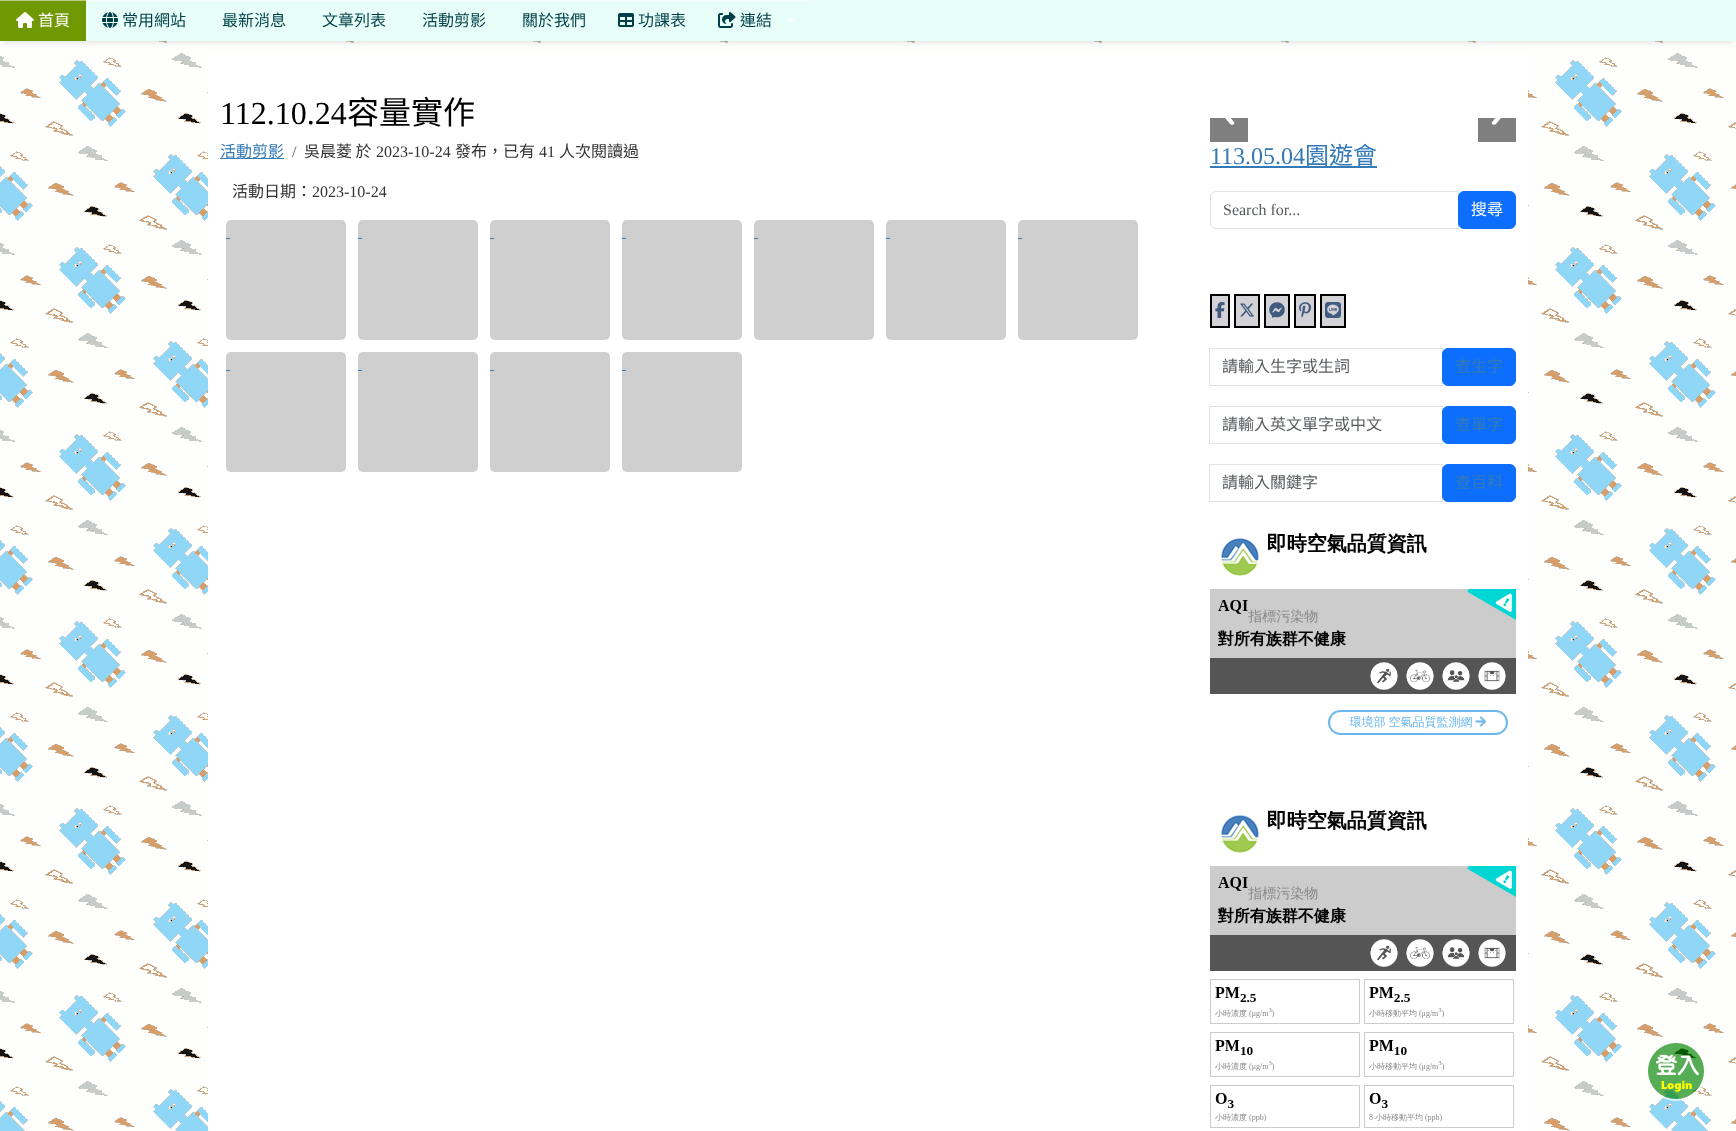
<svg xmlns="http://www.w3.org/2000/svg" width="1736" height="1131" viewBox="0 0 1736 1131">
  <rect width="100%" height="100%" fill="rgb(255,255,255)"/>
  <image x="0" y="41" width="1736" height="1090" href="pic1.png"/>
  <rect x="3" y="8" width="1730" height="35" fill="rgba(0,0,0,0.1)" filter="blur(2.5px)"/>
  <rect x="86" y="0" width="1650" height="41" fill="rgb(232,255,249)"/>
  <rect x="0" y="1" width="86" height="40" fill="rgb(112,152,0)"/>
  <rect x="0" y="0" width="86" height="1" fill="rgb(184,204,128)"/>
  <image x="16" y="12" width="18" height="16" href="pic2.png"/>
  <text x="38" y="26" font-family="Noto Sans CJK TC" font-size="16" fill="rgb(255,255,255)">首頁</text>
  <rect x="86" y="0" width="726" height="1" fill="rgb(244,255,252)"/>
  <image x="102" y="12" width="16" height="16" href="pic3.png"/>
  <g font-family="Noto Sans CJK TC" font-size="16" fill="rgb(0,63,72)">
    <text x="122" y="26">常用網站</text>
    <text x="222" y="26">最新消息</text>
    <text x="322" y="26">文章列表</text>
    <text x="422" y="26">活動剪影</text>
    <text x="522" y="26">關於我們</text>
  </g>
  <image x="618" y="13" width="16" height="14" href="pic4.png"/>
  <text x="638" y="26" font-family="Noto Sans CJK TC" font-size="16" fill="rgb(0,63,72)">功課表</text>
  <image x="718" y="12" width="18" height="16" href="pic5.png"/>
  <text x="740" y="26" font-family="Noto Sans CJK TC" font-size="16" fill="rgb(0,63,72)">連結</text>
  <path d="M786 18H796L791 23Z" fill="rgb(244,255,252)"/>
  <rect x="208" y="53" width="1320" height="1078" fill="rgb(255,255,255)"/>
  <text x="220" y="124" font-family="Liberation Serif" font-size="32" fill="rgb(0,0,0)">112.10.24</text>
  <text x="347" y="124" font-family="Noto Sans CJK TC" font-size="32" fill="rgb(0,0,0)">容量實作</text>
  <rect x="220" y="158" width="64" height="1" fill="rgb(51,122,183)"/>
  <text x="220" y="157" font-family="Noto Sans CJK TC" font-size="16" fill="rgb(51,122,183)">活動剪影</text>
  <text x="292" y="157" font-family="Liberation Serif" font-size="16" fill="rgb(89,92,95)">/</text>
  <text x="304" y="157" font-family="Noto Sans CJK TC" font-size="16" fill="rgb(51,51,51)">吳晨菱 於</text>
  <text x="376" y="157" font-family="Liberation Serif" font-size="16" fill="rgb(51,51,51)">2023-10-24</text>
  <text x="455" y="157" font-family="Noto Sans CJK TC" font-size="16" fill="rgb(51,51,51)">發布，已有</text>
  <text x="539" y="157" font-family="Liberation Serif" font-size="16" fill="rgb(51,51,51)">41</text>
  <g font-family="Noto Sans CJK TC" font-size="16" fill="rgb(51,51,51)">
    <text x="559" y="157">人次閱讀過</text>
    <text x="232" y="197">活動日期：</text>
  </g>
  <text x="312" y="197" font-family="Liberation Serif" font-size="16" fill="rgb(51,51,51)">2023-10-24</text>
  <rect x="226" y="220" width="120" height="120" rx="5" fill="rgb(207,207,207)"/>
  <rect x="226" y="238" width="4" height="1" fill="rgb(51,122,183)"/>
  <rect x="358" y="220" width="120" height="120" rx="5" fill="rgb(207,207,207)"/>
  <rect x="358" y="238" width="4" height="1" fill="rgb(51,122,183)"/>
  <rect x="490" y="220" width="120" height="120" rx="5" fill="rgb(207,207,207)"/>
  <rect x="490" y="238" width="4" height="1" fill="rgb(51,122,183)"/>
  <rect x="622" y="220" width="120" height="120" rx="5" fill="rgb(207,207,207)"/>
  <rect x="622" y="238" width="4" height="1" fill="rgb(51,122,183)"/>
  <rect x="754" y="220" width="120" height="120" rx="5" fill="rgb(207,207,207)"/>
  <rect x="754" y="238" width="4" height="1" fill="rgb(51,122,183)"/>
  <rect x="886" y="220" width="120" height="120" rx="5" fill="rgb(207,207,207)"/>
  <rect x="886" y="238" width="4" height="1" fill="rgb(51,122,183)"/>
  <rect x="1018" y="220" width="120" height="120" rx="5" fill="rgb(207,207,207)"/>
  <rect x="1018" y="238" width="4" height="1" fill="rgb(51,122,183)"/>
  <rect x="226" y="352" width="120" height="120" rx="5" fill="rgb(207,207,207)"/>
  <rect x="226" y="370" width="4" height="1" fill="rgb(51,122,183)"/>
  <rect x="358" y="352" width="120" height="120" rx="5" fill="rgb(207,207,207)"/>
  <rect x="358" y="370" width="4" height="1" fill="rgb(51,122,183)"/>
  <rect x="490" y="352" width="120" height="120" rx="5" fill="rgb(207,207,207)"/>
  <rect x="490" y="370" width="4" height="1" fill="rgb(51,122,183)"/>
  <rect x="622" y="352" width="120" height="120" rx="5" fill="rgb(207,207,207)"/>
  <rect x="622" y="370" width="4" height="1" fill="rgb(51,122,183)"/>
  <image x="1210" y="118" width="38" height="24" href="pic6.png"/>
  <image x="1478" y="118" width="38" height="24" href="pic7.png"/>
  <text x="1210" y="164" font-family="Liberation Serif" font-size="24" fill="rgb(51,122,183)">113.05.04</text>
  <rect x="1210" y="166" width="167" height="2" fill="rgb(51,122,183)"/>
  <text x="1305" y="164" font-family="Noto Sans CJK TC" font-size="24" fill="rgb(51,122,183)">園遊會</text>
  <path d="M1216 191.5H1458.5V228.5H1216C1213 228.5 1210.5 226 1210.5 223V197C1210.5 194 1213 191.5 1216 191.5Z" fill="none" stroke="rgb(222,226,230)"/>
  <text x="1223" y="215" font-family="Liberation Serif" font-size="16" fill="rgb(89,92,95)">Search for...</text>
  <rect x="1458.5" y="191.5" width="57" height="37" rx="5.5" fill="rgb(13,110,253)" stroke="rgb(13,110,253)"/>
  <text x="1471" y="215" font-family="Noto Sans CJK TC" font-size="16" fill="rgb(255,255,255)">搜尋</text>
  <rect x="1211" y="295" width="18" height="32" fill="rgb(211,210,214)" stroke="rgb(0,0,0)" stroke-width="2"/>
  <image x="1215" y="302" width="10" height="16" href="pic8.png"/>
  <rect x="1235" y="295" width="24" height="32" fill="rgb(211,210,214)" stroke="rgb(0,0,0)" stroke-width="2"/>
  <image x="1240" y="303" width="15" height="14" href="pic9.png"/>
  <rect x="1265" y="295" width="24" height="32" fill="rgb(211,210,214)" stroke="rgb(0,0,0)" stroke-width="2"/>
  <image x="1269" y="302" width="16" height="16" href="pic10.png"/>
  <rect x="1295" y="295" width="20" height="32" fill="rgb(211,210,214)" stroke="rgb(0,0,0)" stroke-width="2"/>
  <image x="1299" y="302" width="12" height="16" href="pic11.png"/>
  <rect x="1321" y="295" width="24" height="32" fill="rgb(211,210,214)" stroke="rgb(0,0,0)" stroke-width="2"/>
  <image x="1325" y="302" width="16" height="16" href="pic12.png"/>
  <rect x="1209.5" y="348.5" width="233" height="37" fill="none" stroke="rgb(222,226,230)"/>
  <text x="1222" y="372" font-family="Noto Sans CJK TC" font-size="16" fill="rgb(89,92,95)">請輸入生字或生詞</text>
  <rect x="1442.5" y="348.5" width="73" height="37" rx="5.5" fill="rgb(13,110,253)" stroke="rgb(13,110,253)"/>
  <text x="1455" y="372" font-family="Noto Sans CJK TC" font-size="16" fill="rgb(51,122,183)">查生字</text>
  <rect x="1209.5" y="406.5" width="233" height="37" fill="none" stroke="rgb(222,226,230)"/>
  <text x="1222" y="430" font-family="Noto Sans CJK TC" font-size="16" fill="rgb(89,92,95)">請輸入英文單字或中文</text>
  <rect x="1442.5" y="406.5" width="73" height="37" rx="5.5" fill="rgb(13,110,253)" stroke="rgb(13,110,253)"/>
  <text x="1455" y="430" font-family="Noto Sans CJK TC" font-size="16" fill="rgb(51,122,183)">查單字</text>
  <rect x="1209.5" y="464.5" width="233" height="37" fill="none" stroke="rgb(222,226,230)"/>
  <text x="1222" y="488" font-family="Noto Sans CJK TC" font-size="16" fill="rgb(89,92,95)">請輸入關鍵字</text>
  <rect x="1442.5" y="464.5" width="73" height="37" rx="5.5" fill="rgb(13,110,253)" stroke="rgb(13,110,253)"/>
  <text x="1455" y="488" font-family="Noto Sans CJK TC" font-size="16" fill="rgb(51,122,183)">查百科</text>
  <image x="1210" y="532" width="306" height="203" href="pic13.png"/>
  <image x="1210" y="809" width="306" height="319" href="pic14.png"/>
  <image x="1648" y="1043" width="56" height="58" href="pic15.png"/>
</svg>
